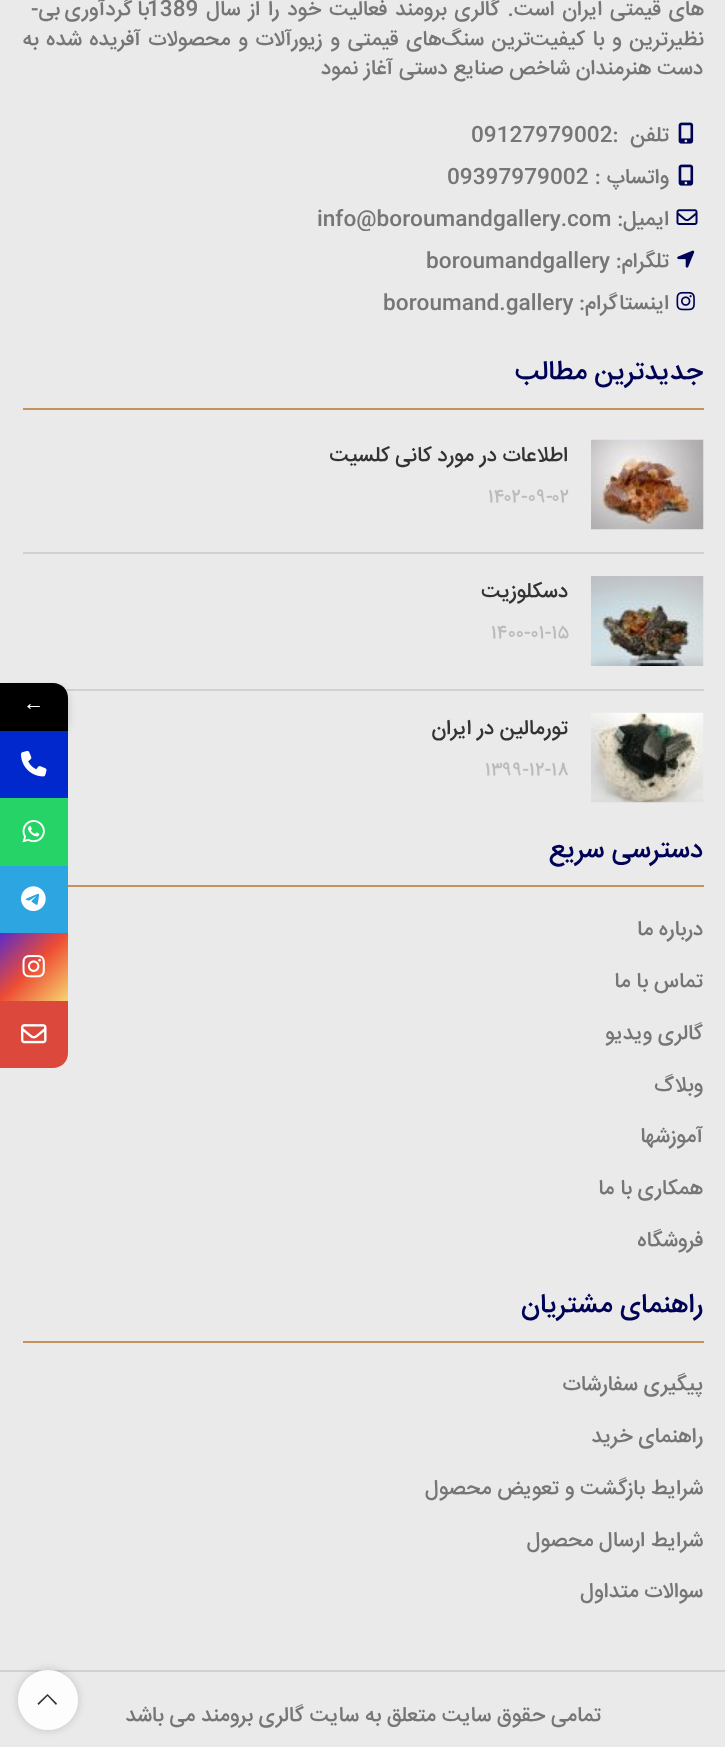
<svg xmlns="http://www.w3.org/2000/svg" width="725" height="1747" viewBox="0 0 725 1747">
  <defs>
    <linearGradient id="g1" gradientUnits="userSpaceOnUse" x1="0" y1="932" x2="68" y2="1000"><stop offset="0" stop-color="rgb(88,43,205)"/><stop offset="0.5" stop-color="rgb(237,76,51)"/><stop offset="1" stop-color="rgb(247,211,111)"/></linearGradient>
    <clipPath id="clip1"><path d="M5 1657H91V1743H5ZM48 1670C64.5 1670 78 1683.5 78 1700C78 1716.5 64.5 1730 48 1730C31.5 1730 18 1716.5 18 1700C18 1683.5 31.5 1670 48 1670Z" clip-rule="evenodd"/></clipPath>
  </defs>
  <rect width="100%" height="100%" fill="rgb(234,234,234)"/>
  <g font-family="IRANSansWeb" font-size="21" font-weight="500" direction="rtl" fill="rgb(118,118,118)">
    <text x="704" y="15" word-spacing="2">های قیمتی ایران است. گالری برومند فعالیت خود را از سال</text>
    <text x="149" y="15" word-spacing="-1">با گردآوری بی-</text>
  </g>
  <text x="147" y="15" font-family="IRANSansWeb" font-size="21" font-weight="500" fill="rgb(118,118,118)">1389</text>
  <g font-family="IRANSansWeb" font-size="21" font-weight="500" direction="rtl" fill="rgb(118,118,118)">
    <text x="704" y="45" word-spacing="1.9">نظیرترین و با کیفیت‌ترین سنگ‌های قیمتی و زیورآلات و محصولات آفریده شده به</text>
    <text x="703" y="74">دست هنرمندان شاخص صنایع دستی آغاز نمود</text>
  </g>
  <image x="678" y="122" width="16" height="22" href="pic1.png"/>
  <text x="669" y="141" font-family="IRANSansWeb" font-size="21" font-weight="500" direction="rtl" fill="rgb(118,118,118)">تلفن</text>
  <text x="471" y="141" font-family="IRANSansWeb" font-size="21" font-weight="500" fill="rgb(118,118,118)">09127979002:</text>
  <image x="678" y="164" width="16" height="22" href="pic1.png"/>
  <text x="669" y="183" font-family="IRANSansWeb" font-size="21" font-weight="500" direction="rtl" fill="rgb(118,118,118)">واتساپ :</text>
  <text x="447" y="183" font-family="IRANSansWeb" font-size="21" font-weight="500" fill="rgb(118,118,118)">09397979002</text>
  <image x="676" y="209" width="22" height="16" href="pic2.png"/>
  <text x="669" y="225" font-family="IRANSansWeb" font-size="21" font-weight="500" direction="rtl" fill="rgb(118,118,118)">ایمیل:</text>
  <text x="317" y="225" font-family="IRANSansWeb" font-size="21" font-weight="500" fill="rgb(118,118,118)">info@boroumandgallery.com</text>
  <image x="677" y="250" width="18" height="18" href="pic3.png"/>
  <text x="669" y="267" font-family="IRANSansWeb" font-size="21" font-weight="500" direction="rtl" fill="rgb(118,118,118)">تلگرام:</text>
  <text x="426" y="267" font-family="IRANSansWeb" font-size="21" font-weight="500" fill="rgb(118,118,118)">boroumandgallery</text>
  <image x="676" y="291" width="19" height="20" href="pic4.png"/>
  <text x="669" y="309" font-family="IRANSansWeb" font-size="21" font-weight="500" direction="rtl" fill="rgb(118,118,118)">اینستاگرام:</text>
  <text x="383" y="309" font-family="IRANSansWeb" font-size="21" font-weight="500" fill="rgb(118,118,118)">boroumand.gallery</text>
  <rect x="23" y="408" width="681" height="2" fill="rgb(195,147,91)"/>
  <text x="703" y="379" font-family="IRANSansWeb" font-size="27" font-weight="500" direction="rtl" fill="rgb(0,2,85)">جدیدترین مطالب</text>
  <rect x="23" y="552" width="681" height="2" fill="rgb(209,209,209)"/>
  <image x="591" y="439" width="113" height="91" href="pic5.png"/>
  <text x="568" y="461" font-family="IRANSansWeb" font-size="21" font-weight="500" direction="rtl" fill="rgb(51,51,51)">اطلاعات در مورد کانی کلسیت</text>
  <text x="488" y="502" font-family="IRANSansWeb" font-size="19" font-weight="500" fill="rgb(187,187,187)">۱۴۰۲-۰۹-۰۲</text>
  <rect x="65" y="689" width="639" height="2" fill="rgb(209,209,209)"/>
  <image x="591" y="576" width="113" height="90" href="pic6.png"/>
  <text x="568" y="597" font-family="IRANSansWeb" font-size="21" font-weight="500" direction="rtl" fill="rgb(51,51,51)">دسکلوزیت</text>
  <text x="491" y="638" font-family="IRANSansWeb" font-size="19" font-weight="500" fill="rgb(187,187,187)">۱۴۰۰-۰۱-۱۵</text>
  <image x="591" y="712" width="113" height="91" href="pic7.png"/>
  <text x="568" y="734" font-family="IRANSansWeb" font-size="21" font-weight="500" direction="rtl" fill="rgb(51,51,51)">تورمالین در ایران</text>
  <text x="485" y="775" font-family="IRANSansWeb" font-size="19" font-weight="500" fill="rgb(187,187,187)">۱۳۹۹-۱۲-۱۸</text>
  <rect x="68" y="885" width="636" height="2" fill="rgb(195,147,91)"/>
  <text x="703" y="857" font-family="IRANSansWeb" font-size="27" font-weight="500" direction="rtl" fill="rgb(0,2,85)">دسترسی سریع</text>
  <g font-family="IRANSansWeb" font-size="21" font-weight="500" direction="rtl" fill="rgb(118,118,118)">
    <text x="703" y="935">درباره ما</text>
    <text x="703" y="987">تماس با ما</text>
    <text x="703" y="1039">گالری ویدیو</text>
    <text x="703" y="1091">وبلاگ</text>
    <text x="703" y="1142">آموزشها</text>
    <text x="703" y="1194">همکاری با ما</text>
    <text x="703" y="1246">فروشگاه</text>
  </g>
  <rect x="23" y="1341" width="681" height="2" fill="rgb(195,147,91)"/>
  <text x="703" y="1312" font-family="IRANSansWeb" font-size="27" font-weight="500" direction="rtl" fill="rgb(0,2,85)">راهنمای مشتریان</text>
  <g font-family="IRANSansWeb" font-size="21" font-weight="500" direction="rtl" fill="rgb(118,118,118)">
    <text x="703" y="1390">پیگیری سفارشات</text>
    <text x="703" y="1442">راهنمای خرید</text>
    <text x="703" y="1494">شرایط بازگشت و تعویض محصول</text>
    <text x="703" y="1546">شرایط ارسال محصول</text>
    <text x="703" y="1597">سوالات متداول</text>
  </g>
  <rect x="0" y="1670" width="725" height="2" fill="rgb(209,209,209)"/>
  <text x="601" y="1721" font-family="IRANSansWeb" font-size="21" font-weight="500" direction="rtl" fill="rgb(118,118,118)">تمامی حقوق سایت متعلق به سایت گالری برومند می باشد</text>
  <rect x="0" y="687" width="68" height="48" rx="15" fill="rgba(0,0,0,0.16)" filter="blur(4.5px)"/>
  <path d="M0 683H53C61.5 683 68 689.5 68 698V731H0Z" fill="rgb(0,0,0)"/>
  <text x="23" y="710" font-family="Liberation Serif" font-size="21" fill="rgb(255,255,255)">←</text>
  <rect x="0" y="731" width="68" height="67" fill="rgb(0,40,204)"/>
  <image x="21" y="750" width="26" height="27" href="pic8.png"/>
  <rect x="0" y="798" width="68" height="68" fill="rgb(38,211,103)"/>
  <image x="22" y="820" width="23" height="23" href="pic9.png"/>
  <rect x="0" y="866" width="68" height="67" fill="rgb(44,165,224)"/>
  <image x="21" y="886" width="25" height="25" href="pic10.png"/>
  <rect x="0" y="933" width="68" height="68" fill="url(#g1)"/>
  <image x="22" y="955" width="23" height="23" href="pic11.png"/>
  <path d="M0 1001H68V1053C68 1061.5 61.5 1068 53 1068H0Z" fill="rgb(220,72,60)"/>
  <image x="21" y="1024" width="26" height="20" href="pic12.png"/>
  <g clip-path="url(#clip1)">
    <rect x="18" y="1670" width="60" height="60" rx="30" fill="rgba(0,0,0,0.17)" filter="blur(4px)"/>
  </g>
  <circle cx="48" cy="1700" r="30" fill="rgba(255,255,255,0.9)"/>
  <path d="M56 1705L57 1703.5L47.5 1694L37.5 1703.5L38.5 1705L47.5 1696Z" fill="rgb(51,51,51)"/>
</svg>
